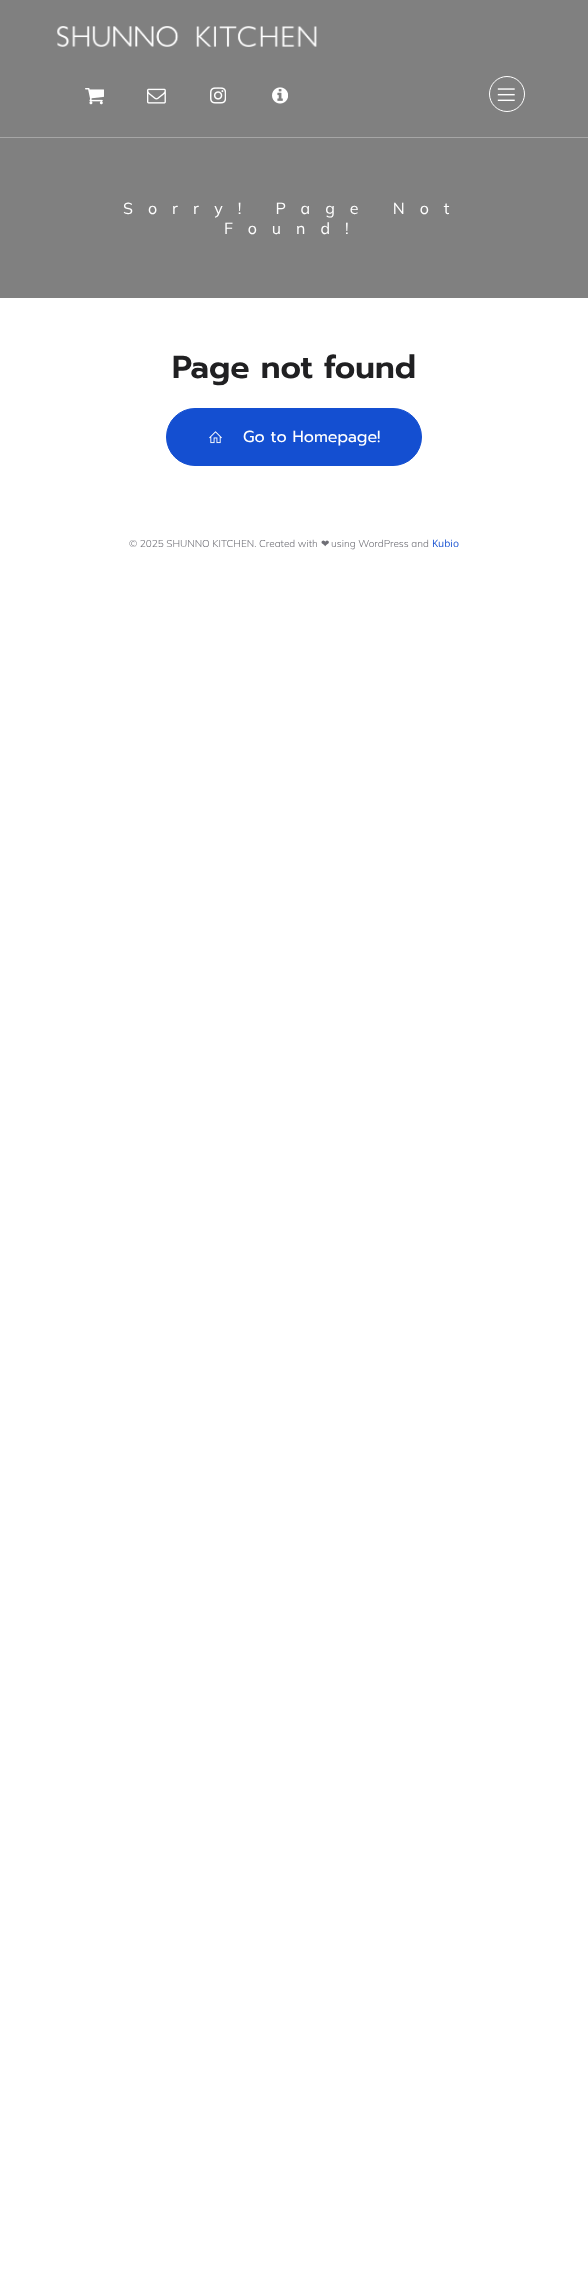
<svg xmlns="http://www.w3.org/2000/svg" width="588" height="2290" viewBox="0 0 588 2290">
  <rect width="100%" height="100%" fill="rgb(255,255,255)"/>
  <rect x="0" y="0" width="588" height="298" fill="rgb(128,128,128)"/>
  <rect x="0" y="137" width="588" height="1" fill="rgb(166,166,166)"/>
  <image x="57" y="26" width="260" height="21" href="pic1.png"/>
  <image x="85" y="88" width="19" height="17" href="pic2.png"/>
  <image x="147" y="88" width="19" height="16" href="pic3.png"/>
  <image x="210" y="87" width="16" height="17" href="pic4.png"/>
  <image x="272" y="87" width="16" height="17" href="pic5.png"/>
  <circle cx="507" cy="94" r="17.5" fill="none" stroke="rgb(255,255,255)"/>
  <image x="497" y="88" width="18" height="13" href="pic6.png"/>
  <g font-family="Mulish" font-size="16" letter-spacing="15" fill="rgb(255,255,255)">
    <text x="123" y="214">Sorry! Page Not</text>
    <text x="224" y="234">Found!</text>
  </g>
  <text x="172" y="378" font-family="Prompt" font-size="32" font-weight="600" fill="rgb(32,32,34)">Page not found</text>
  <rect x="166.5" y="408.5" width="255" height="57" rx="28.5" fill="rgb(20,79,209)" stroke="rgb(20,79,209)"/>
  <image x="209" y="431" width="13" height="13" href="pic7.png"/>
  <text x="243" y="442" font-family="Prompt" font-size="16" fill="rgb(255,255,255)">Go to Homepage!</text>
  <text x="129" y="547" font-family="Mulish" font-size="10" font-weight="300" fill="rgb(111,111,118)">© 2025 SHUNNO KITCHEN. Created with</text>
  <text x="321" y="547" font-family="DejaVu Sans" font-size="10" fill="rgb(111,111,118)">❤</text>
  <text x="331" y="547" font-family="Mulish" font-size="10" font-weight="300" fill="rgb(111,111,118)">using WordPress and</text>
  <text x="432" y="547" font-family="Open Sans" font-size="10" fill="rgb(20,79,209)">Kubio</text>
</svg>
